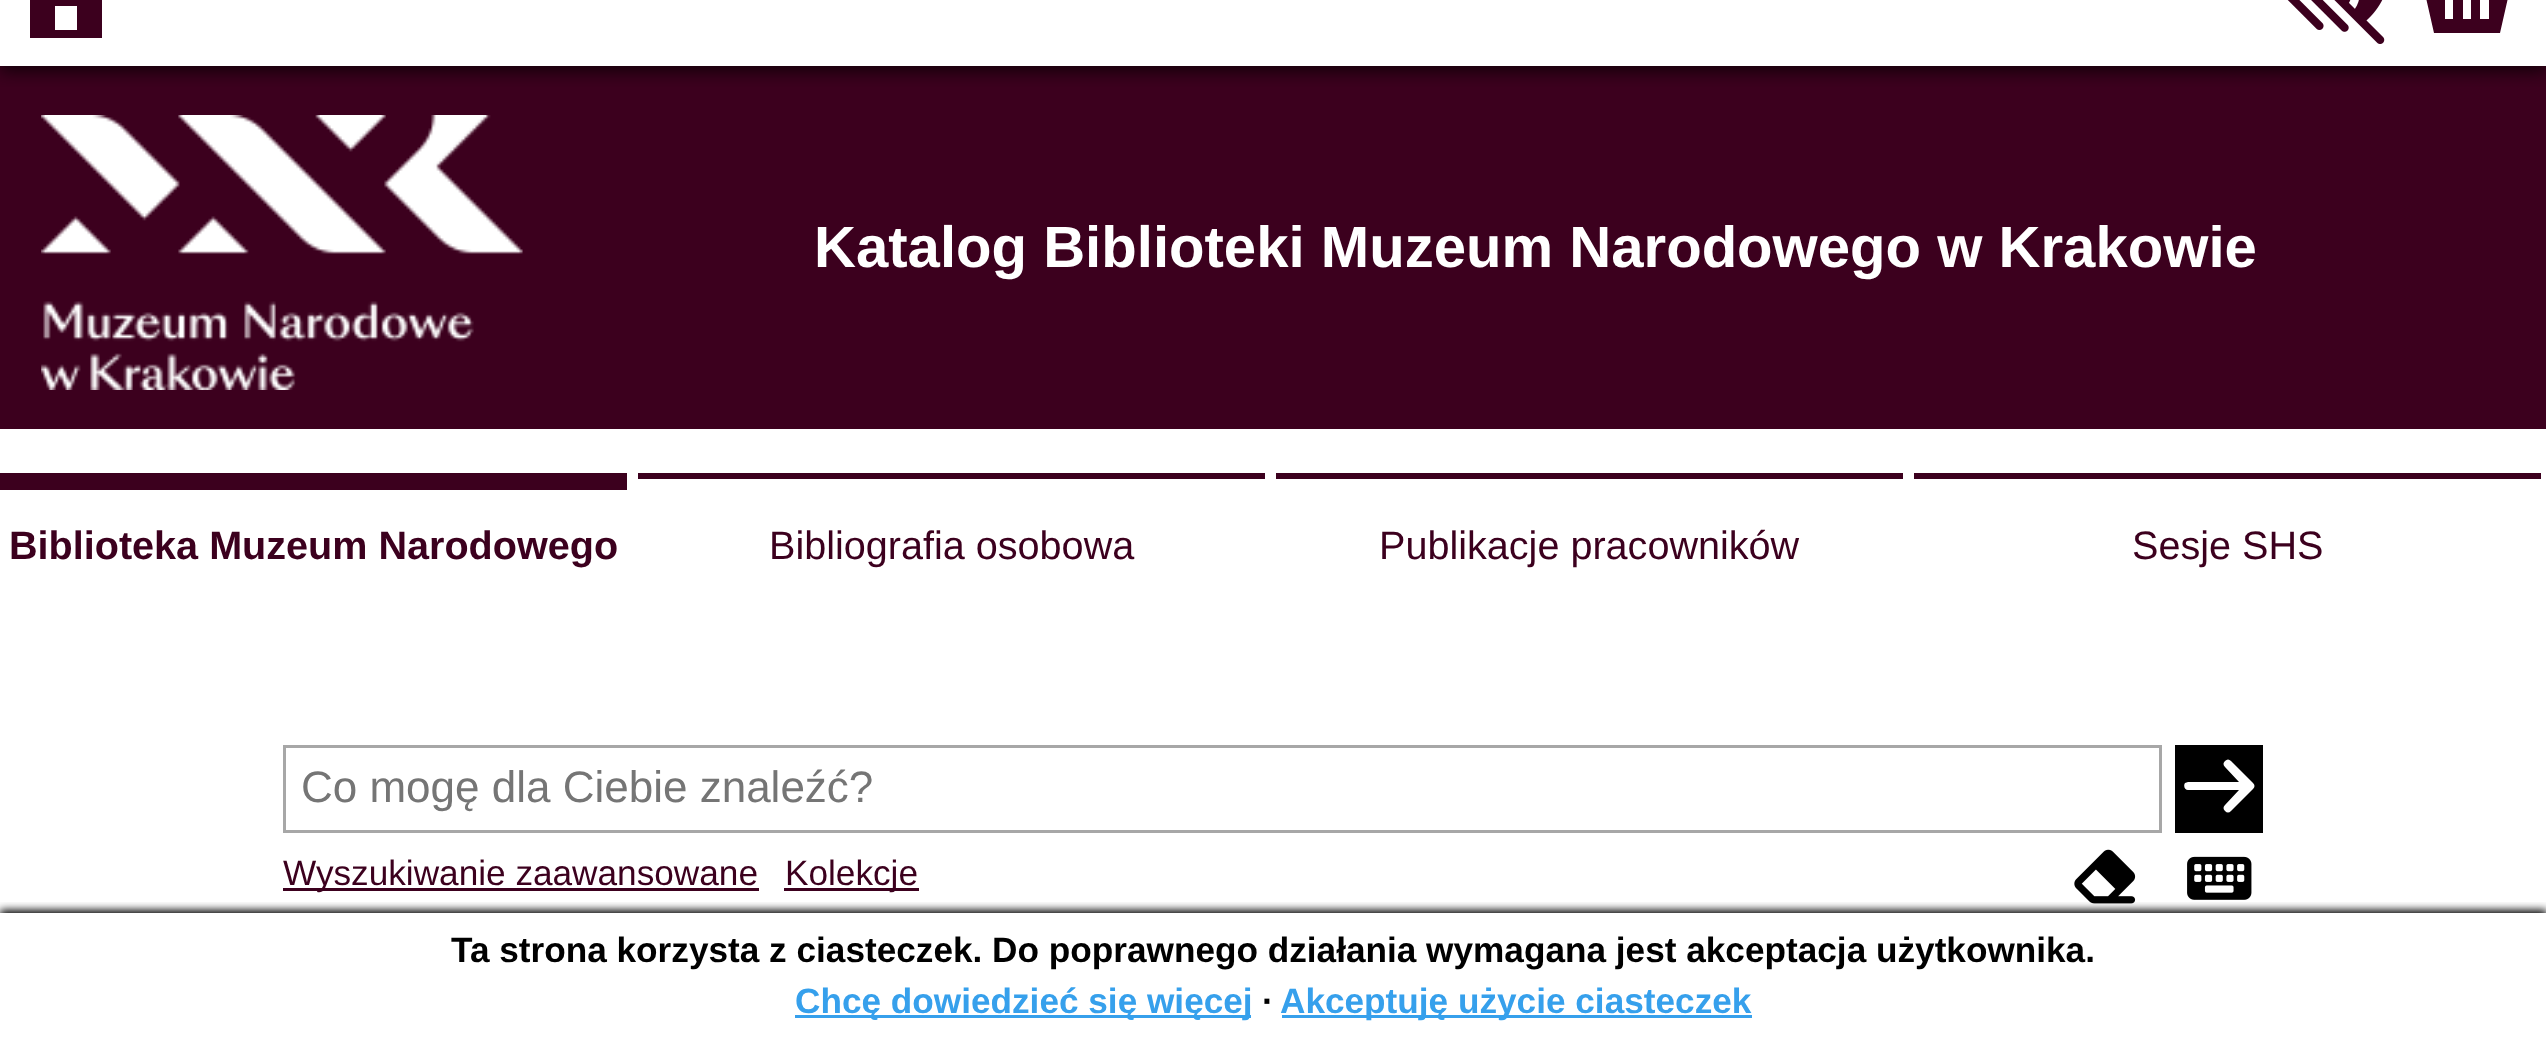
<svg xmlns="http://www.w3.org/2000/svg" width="2546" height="1046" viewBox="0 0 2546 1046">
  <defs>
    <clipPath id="clip1"><rect x="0" y="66" width="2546" height="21"/></clipPath>
    <clipPath id="clip2"><rect x="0" y="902" width="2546" height="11"/></clipPath>
  </defs>
  <rect width="100%" height="100%" fill="rgb(255,255,255)"/>
  <rect x="0" y="66" width="2546" height="363" fill="rgb(60,0,30)"/>
  <g clip-path="url(#clip1)">
    <rect x="0" y="-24" width="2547" height="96" fill="rgba(0,0,0,0.65)" filter="blur(8px)"/>
  </g>
  <path d="M110-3H102V38H30V-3H22V-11L66-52L110-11ZM77 30V6H55V30Z" fill="rgb(60,0,30)"/>
  <image x="2287" y="0" width="98" height="44" href="pic1.png"/>
  <path d="M2467-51L2495-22H2514V-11H2510L2500 33H2434L2424-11H2420V-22H2439ZM2467-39L2450-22H2483ZM2453-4V-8H2445V19H2453ZM2471-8H2463V19H2471ZM2489-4V-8H2480V19H2489Z" fill="rgb(60,0,30)"/>
  <image x="41" y="115" width="482" height="275" href="pic2.png"/>
  <text x="814" y="267" font-family="Liberation Sans" font-size="58.1" font-weight="bold" fill="rgb(255,255,255)">Katalog Biblioteki Muzeum Narodowego w Krakowie</text>
  <rect x="0" y="473" width="627" height="17" fill="rgb(60,0,30)"/>
  <text x="9" y="559" font-family="Liberation Sans" font-size="39.6" font-weight="bold" fill="rgb(60,0,30)">Biblioteka Muzeum Narodowego</text>
  <rect x="638" y="473" width="627" height="6" fill="rgb(60,0,30)"/>
  <text x="769" y="559" font-family="Liberation Sans" font-size="39.6" fill="rgb(60,0,30)">Bibliografia osobowa</text>
  <rect x="1276" y="473" width="627" height="6" fill="rgb(60,0,30)"/>
  <text x="1379" y="559" font-family="Liberation Sans" font-size="39.6" fill="rgb(60,0,30)">Publikacje pracowników</text>
  <rect x="1914" y="473" width="627" height="6" fill="rgb(60,0,30)"/>
  <text x="2132" y="559" font-family="Liberation Sans" font-size="39.6" fill="rgb(60,0,30)">Sesje SHS</text>
  <rect x="284.5" y="746.5" width="1876" height="85" fill="none" stroke="rgb(167,167,167)" stroke-width="3"/>
  <text x="301" y="802" font-family="Liberation Sans" font-size="44" fill="rgb(117,117,117)">Co mogę dla Ciebie znaleźć?</text>
  <rect x="2175" y="745" width="88" height="88" fill="rgb(0,0,0)"/>
  <path d="M2253 789C2255 787 2255 785 2253 783L2231 761C2229 759 2227 759 2225 761C2223 763 2223 765 2225 767L2239 782H2188L2185 783C2183 786 2185 790 2188 790H2239L2225 805C2223 807 2223 809 2225 811C2227 813 2229 813 2231 811Z" fill="rgb(255,255,255)"/>
  <rect x="283" y="888" width="476" height="3" fill="rgb(60,0,30)"/>
  <text x="283" y="885" font-family="Liberation Sans" font-size="35.2" fill="rgb(60,0,30)">Wyszukiwanie zaawansowane</text>
  <rect x="784" y="888" width="135" height="3" fill="rgb(60,0,30)"/>
  <text x="785" y="885" font-family="Liberation Sans" font-size="35.2" fill="rgb(60,0,30)">Kolekcje</text>
  <image x="2074" y="849" width="62" height="55" href="pic3.png"/>
  <image x="2187" y="856" width="65" height="44" href="pic4.png"/>
  <g clip-path="url(#clip2)">
    <rect x="0" y="910" width="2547" height="135" fill="rgb(0,0,0)" filter="blur(4px)"/>
  </g>
  <text x="451" y="962" font-family="Liberation Sans" font-size="35.2" font-weight="bold" fill="rgb(0,0,0)">Ta strona korzysta z ciasteczek. Do poprawnego działania wymagana jest akceptacja użytkownika.</text>
  <rect x="795" y="1015" width="456" height="3" fill="rgb(54,160,236)"/>
  <text x="795" y="1013" font-family="Liberation Sans" font-size="35.2" font-weight="bold" fill="rgb(54,160,236)">Chcę dowiedzieć się więcej</text>
  <text x="1262" y="1013" font-family="Liberation Sans" font-size="35.2" font-weight="bold" fill="rgb(0,0,0)">∙</text>
  <rect x="1282" y="1015" width="470" height="3" fill="rgb(54,160,236)"/>
  <text x="1280" y="1013" font-family="Liberation Sans" font-size="35.2" font-weight="bold" fill="rgb(54,160,236)">Akceptuję użycie ciasteczek</text>
</svg>
